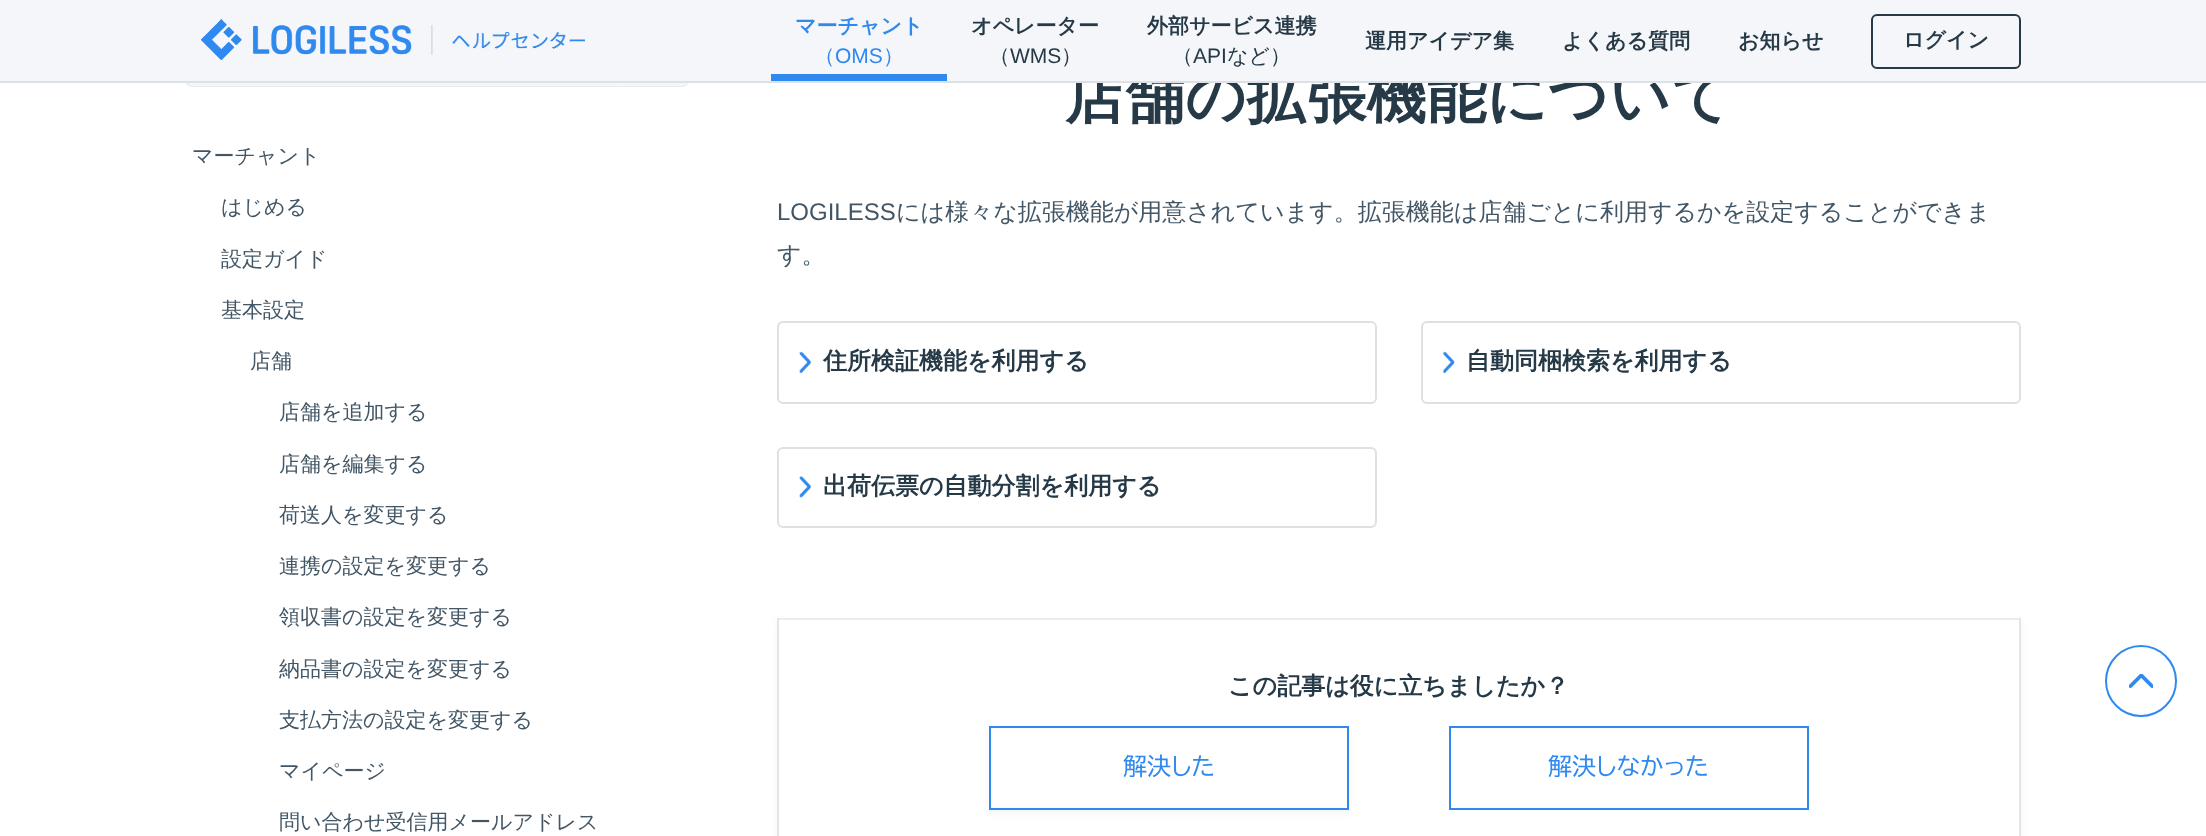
<svg xmlns="http://www.w3.org/2000/svg" width="2206" height="836" viewBox="0 0 2206 836">
  <rect width="100%" height="100%" fill="rgb(255,255,255)"/>
  <path d="M615 12H683C686.5 12 689 14.5 689 18V81C689 84.5 686.5 87 683 87H615Z" fill="rgb(245,246,249)"/>
  <path d="M615 12H682C686 12 688 15 688 18V81C688 84 686 87 682 87H615ZM615 14H682C685 14 687 16 687 18V81C687 83 685 86 682 86H615Z" fill="rgb(233,237,239)" fill-rule="evenodd"/>
  <path d="M192 12H617V87H192C188.5 87 186 84.5 186 81V18C186 14.5 188.5 12 192 12Z" fill="rgb(245,246,249)"/>
  <path d="M192 12H616V87H192C189 87 186 84 186 81V18C186 15 189 12 192 12ZM192 14H616V86H192C190 86 188 83 188 81V18C188 16 190 14 192 14Z" fill="rgb(233,237,239)" fill-rule="evenodd"/>
  <text x="1065" y="117" font-family="WenQuanYi Zen Hei" font-size="60" font-weight="bold" fill="rgb(37,57,71)">店舗の拡張機能について</text>
  <rect x="0" y="0" width="2206" height="81" fill="rgb(245,246,249)"/>
  <rect x="0" y="81" width="2206" height="2" fill="rgb(220,225,229)"/>
  <image x="201" y="19" width="384" height="41" href="pic1.png"/>
  <text x="795" y="33" font-family="WenQuanYi Zen Hei" font-size="21" font-weight="bold" fill="rgb(47,137,238)">マーチャント</text>
  <text x="814" y="63" font-family="WenQuanYi Zen Hei" font-size="21" font-weight="500" fill="rgb(47,137,238)">（</text>
  <text x="835" y="63" font-family="Liberation Sans" font-size="21" fill="rgb(47,137,238)">OMS</text>
  <text x="883" y="63" font-family="WenQuanYi Zen Hei" font-size="21" font-weight="500" fill="rgb(47,137,238)">）</text>
  <rect x="771" y="74" width="176" height="7" fill="rgb(47,137,238)"/>
  <text x="971" y="33" font-family="WenQuanYi Zen Hei" font-size="21" font-weight="bold" fill="rgb(37,57,71)">オペレーター</text>
  <text x="989" y="63" font-family="WenQuanYi Zen Hei" font-size="21" font-weight="500" fill="rgb(37,57,71)">（</text>
  <text x="1010" y="63" font-family="Liberation Sans" font-size="21" fill="rgb(37,57,71)">WMS</text>
  <text x="1061" y="63" font-family="WenQuanYi Zen Hei" font-size="21" font-weight="500" fill="rgb(37,57,71)">）</text>
  <text x="1147" y="33" font-family="WenQuanYi Zen Hei" font-size="21" font-weight="bold" fill="rgb(37,57,71)">外部サービス連携</text>
  <text x="1172" y="63" font-family="WenQuanYi Zen Hei" font-size="21" font-weight="500" fill="rgb(37,57,71)">（</text>
  <text x="1193" y="63" font-family="Liberation Sans" font-size="21" fill="rgb(37,57,71)">API</text>
  <text x="1227" y="63" font-family="WenQuanYi Zen Hei" font-size="21" font-weight="500" fill="rgb(37,57,71)">など）</text>
  <g font-family="WenQuanYi Zen Hei" font-size="21" font-weight="bold" fill="rgb(37,57,71)">
    <text x="1365" y="48">運用アイデア集</text>
    <text x="1562" y="48">よくある質問</text>
    <text x="1738" y="48">お知らせ</text>
  </g>
  <rect x="1872" y="15" width="148" height="53" rx="5" fill="none" stroke="rgb(37,57,71)" stroke-width="2"/>
  <text x="1903" y="47" font-family="WenQuanYi Zen Hei" font-size="21" font-weight="bold" fill="rgb(37,57,71)">ログイン</text>
  <g font-family="WenQuanYi Zen Hei" font-size="21" font-weight="500" fill="rgb(66,86,101)">
    <text x="192" y="163">マーチャント</text>
    <text x="221" y="214">はじめる</text>
    <text x="221" y="266">設定ガイド</text>
    <text x="221" y="317">基本設定</text>
    <text x="250" y="368">店舗</text>
    <text x="279" y="419">店舗を追加する</text>
    <text x="279" y="471">店舗を編集する</text>
    <text x="279" y="522">荷送人を変更する</text>
    <text x="279" y="573">連携の設定を変更する</text>
    <text x="279" y="624">領収書の設定を変更する</text>
    <text x="279" y="676">納品書の設定を変更する</text>
    <text x="279" y="727">支払方法の設定を変更する</text>
    <text x="279" y="778">マイページ</text>
    <text x="279" y="829">問い合わせ受信用メールアドレス</text>
  </g>
  <text x="777" y="220" font-family="Liberation Sans" font-size="24" fill="rgb(66,86,101)">LOGILESS</text>
  <g font-family="WenQuanYi Zen Hei" font-size="24" font-weight="500" fill="rgb(66,86,101)">
    <text x="896" y="220">には様々な拡張機能が用意されています。拡張機能は店舗ごとに利用するかを設定することができま</text>
    <text x="777" y="263">す。</text>
  </g>
  <rect x="778" y="322" width="598" height="81" rx="5" fill="none" stroke="rgb(220,225,229)" stroke-width="2"/>
  <image x="799" y="351" width="12" height="23" href="pic2.png"/>
  <text x="823" y="369" font-family="WenQuanYi Zen Hei" font-size="24" font-weight="bold" fill="rgb(37,57,71)">住所検証機能を利用する</text>
  <rect x="1422" y="322" width="598" height="81" rx="5" fill="none" stroke="rgb(220,225,229)" stroke-width="2"/>
  <image x="1443" y="351" width="12" height="23" href="pic3.png"/>
  <text x="1466" y="369" font-family="WenQuanYi Zen Hei" font-size="24" font-weight="bold" fill="rgb(37,57,71)">自動同梱検索を利用する</text>
  <rect x="778" y="448" width="598" height="79" rx="5" fill="none" stroke="rgb(220,225,229)" stroke-width="2"/>
  <image x="799" y="476" width="12" height="22" href="pic4.png"/>
  <text x="823" y="494" font-family="WenQuanYi Zen Hei" font-size="24" font-weight="bold" fill="rgb(37,57,71)">出荷伝票の自動分割を利用する</text>
  <rect x="777" y="621" width="1244" height="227" fill="rgb(244,244,244)" filter="blur(4px)"/>
  <rect x="779" y="620" width="1240" height="216" fill="rgb(255,255,255)"/>
  <rect x="777" y="618" width="1244" height="2" fill="rgb(233,237,239)"/>
  <rect x="2019" y="618" width="2" height="218" fill="rgb(229,229,229)"/>
  <rect x="777" y="618" width="2" height="218" fill="rgb(229,229,229)"/>
  <text x="1228" y="694" font-family="WenQuanYi Zen Hei" font-size="24" font-weight="bold" fill="rgb(37,57,71)">この記事は役に立ちましたか？</text>
  <rect x="989" y="729" width="360" height="84" fill="rgb(244,244,244)" filter="blur(4px)"/>
  <rect x="990" y="727" width="358" height="82" fill="rgb(255,255,255)" stroke="rgb(47,137,238)" stroke-width="2"/>
  <text x="1123" y="775" font-family="BIZ UDPGothic" font-size="24" fill="rgb(47,137,238)">解決した</text>
  <rect x="1450" y="727" width="358" height="82" fill="none" stroke="rgb(47,137,238)" stroke-width="2"/>
  <text x="1548" y="775" font-family="BIZ UDPGothic" font-size="24" fill="rgb(47,137,238)">解決しなかった</text>
  <circle cx="2141" cy="681" r="35" fill="none" stroke="rgb(47,137,238)" stroke-width="2"/>
  <image x="2129" y="674" width="24" height="14" href="pic5.png"/>
</svg>
